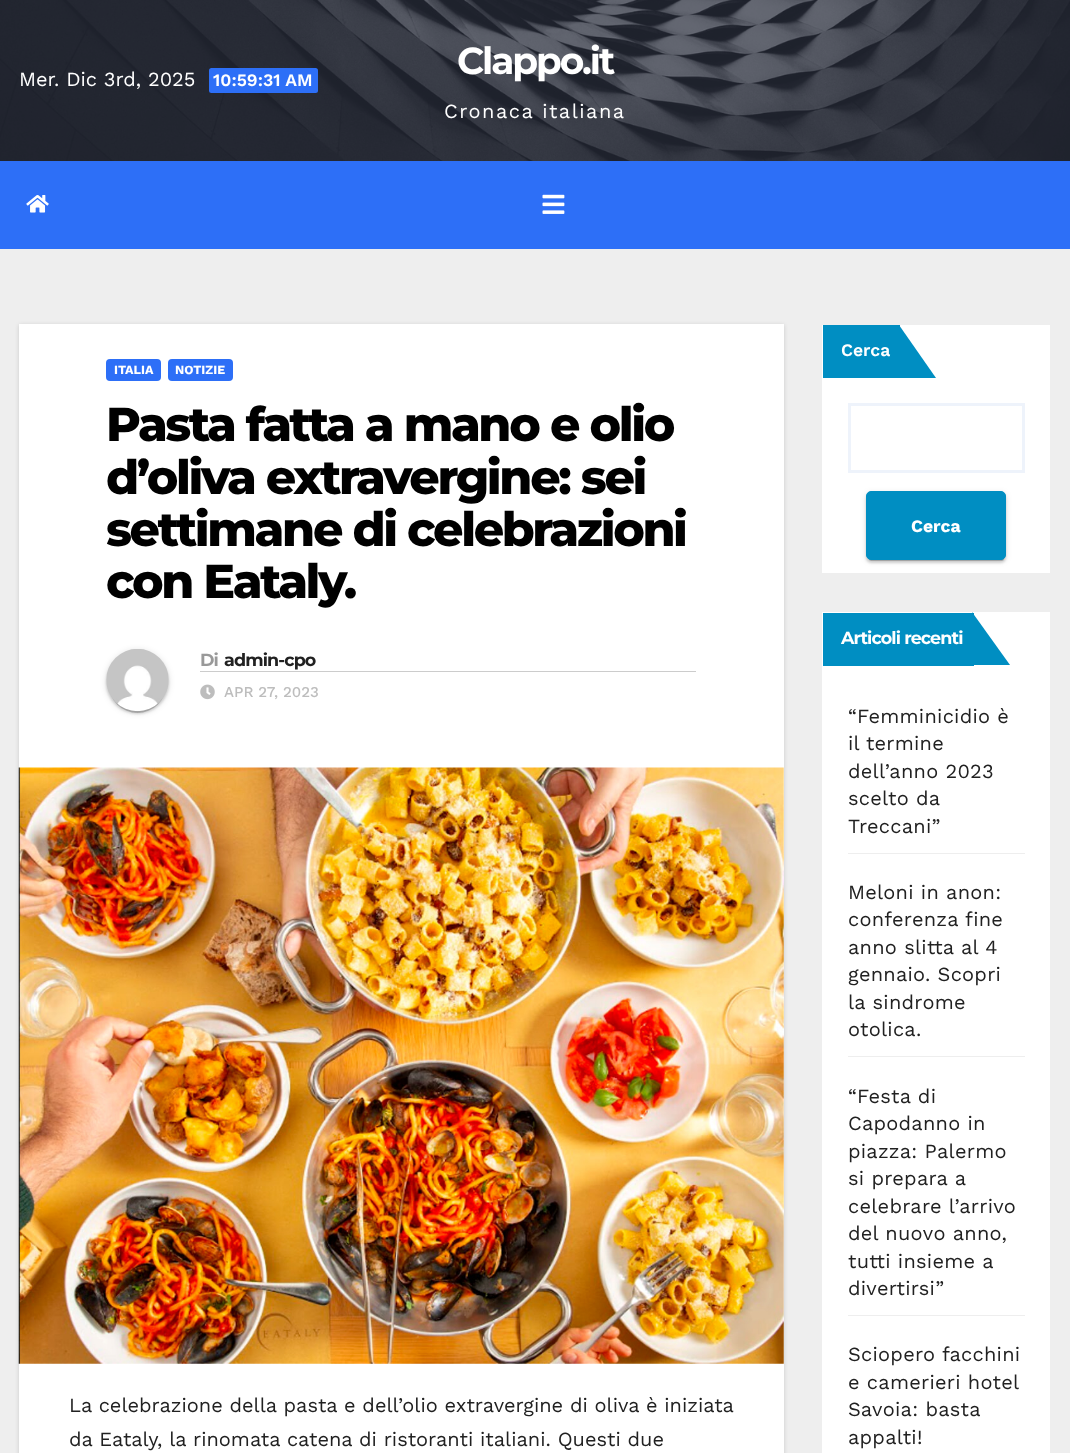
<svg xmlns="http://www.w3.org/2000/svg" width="1070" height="1453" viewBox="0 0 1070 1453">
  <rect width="100%" height="100%" fill="rgb(238,238,238)"/>
  <image x="0" y="0" width="1070" height="161" href="pic1.png"/>
  <text x="19" y="86" font-family="Work Sans" font-size="20" fill="rgb(255,255,255)">Mer. Dic 3rd, 2025</text>
  <rect x="209" y="68" width="109" height="25" rx="2.5" fill="rgb(45,111,247)"/>
  <text x="213" y="86" font-family="Work Sans" font-size="17.5" font-weight="600" fill="rgb(255,255,255)">10:59:31 AM</text>
  <text x="457" y="74" font-family="Montserrat" font-size="37.5" font-weight="bold" letter-spacing="-2.1" fill="rgb(255,255,255)">Clappo.it</text>
  <text x="444" y="118" font-family="Work Sans" font-size="20" letter-spacing="1.5" fill="rgb(255,255,255)">Cronaca italiana</text>
  <rect x="0" y="161" width="1070" height="88" fill="rgb(45,111,247)"/>
  <image x="26" y="195" width="23" height="18" href="pic2.png"/>
  <image x="542" y="194" width="23" height="20" href="pic3.png"/>
  <rect x="19" y="325" width="765" height="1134" fill="rgba(0,0,0,0.15)" filter="blur(2px)"/>
  <rect x="19" y="324" width="765" height="1129" fill="rgb(255,255,255)"/>
  <rect x="106" y="359" width="55" height="22" rx="4" fill="rgb(45,111,247)"/>
  <text x="114" y="374" font-family="Work Sans" font-size="12.5" font-weight="bold" fill="rgb(255,255,255)">ITALIA</text>
  <rect x="168" y="359" width="65" height="22" rx="4" fill="rgb(45,111,247)"/>
  <text x="175" y="374" font-family="Work Sans" font-size="12.5" font-weight="bold" fill="rgb(255,255,255)">NOTIZIE</text>
  <g font-family="Montserrat" font-size="47.5" font-weight="800" letter-spacing="-2.4" fill="rgb(0,0,0)">
    <text>
      <tspan x="106" y="441">Pasta fatta a mano e olio</tspan>
      <tspan x="106" y="494">d’oliva extravergine: sei</tspan>
      <tspan x="106" y="546">settimane di celebrazioni</tspan>
      <tspan x="106" y="598">con Eataly.</tspan>
    </text>
  </g>
  <rect x="106" y="650" width="63" height="63" rx="31.5" fill="rgba(0,0,0,0.12)" filter="blur(3px)"/>
  <rect x="109" y="655" width="57" height="58" rx="28.5" fill="rgba(0,0,0,0.2)" filter="blur(0.5px)"/>
  <rect x="106" y="651" width="63" height="63" rx="31.5" fill="rgba(0,0,0,0.14)" filter="blur(1px)"/>
  <image x="106" y="649" width="63" height="63" href="pic4.png"/>
  <rect x="200" y="671" width="496" height="1" fill="rgb(204,204,204)"/>
  <text x="200" y="666" font-family="Montserrat" font-size="17.5" font-weight="bold" letter-spacing="-0.9" fill="rgb(153,153,153)">Di</text>
  <text x="224" y="666" font-family="Montserrat" font-size="17.5" font-weight="bold" letter-spacing="-0.9" fill="rgb(33,33,33)">admin-cpo</text>
  <image x="200" y="684" width="15" height="16" href="pic5.png"/>
  <text x="224" y="697" font-family="Work Sans" font-size="15" font-weight="500" fill="rgb(189,189,189)">APR 27, 2023</text>
  <image x="18" y="767" width="766" height="597" href="pic6.png"/>
  <g font-family="Work Sans" font-size="20" fill="rgb(33,33,33)">
    <text>
      <tspan x="69" y="1412">La celebrazione della pasta e dell’olio extravergine di oliva è iniziata</tspan>
      <tspan x="69" y="1446">da Eataly, la rinomata catena di ristoranti italiani. Questi due</tspan>
    </text>
  </g>
  <rect x="822" y="325" width="228" height="248" fill="rgb(255,255,255)"/>
  <rect x="823" y="325" width="77" height="53" fill="rgb(0,142,194)"/>
  <text x="841" y="356" font-family="Work Sans" font-size="17.5" font-weight="600" fill="rgb(255,255,255)">Cerca</text>
  <path d="M899 378V325L936 378Z" fill="rgb(0,142,194)"/>
  <rect x="849.5" y="404.5" width="174" height="67" fill="none" stroke="rgb(238,243,251)" stroke-width="3"/>
  <rect x="866" y="493" width="140" height="68" rx="5" fill="rgba(0,0,0,0.12)" filter="blur(3px)"/>
  <rect x="869" y="498" width="135" height="63" rx="2.5" fill="rgba(0,0,0,0.2)" filter="blur(0.5px)"/>
  <rect x="866" y="494" width="140" height="69" rx="5" fill="rgba(0,0,0,0.14)" filter="blur(1px)"/>
  <rect x="866.5" y="491.5" width="139" height="68" rx="4.5" fill="rgb(0,142,194)" stroke="rgb(0,142,194)"/>
  <text x="911" y="532" font-family="Work Sans" font-size="17.5" font-weight="bold" fill="rgb(255,255,255)">Cerca</text>
  <rect x="822" y="612" width="228" height="841" fill="rgb(255,255,255)"/>
  <rect x="823" y="613" width="151" height="53" fill="rgb(0,142,194)"/>
  <text x="841" y="644" font-family="Montserrat" font-size="17.5" font-weight="bold" letter-spacing="-0.9" fill="rgb(255,255,255)">Articoli recenti</text>
  <path d="M972 665V612L1010 665Z" fill="rgb(0,142,194)"/>
  <rect x="848" y="853" width="177" height="1" fill="rgb(238,238,238)"/>
  <g font-family="Work Sans" font-size="20" letter-spacing="0.25" fill="rgb(33,33,33)">
    <text>
      <tspan x="848" y="723">“Femminicidio è</tspan>
      <tspan x="848" y="750">il termine</tspan>
      <tspan x="848" y="778">dell’anno 2023</tspan>
      <tspan x="848" y="805">scelto da</tspan>
      <tspan x="848" y="833">Treccani”</tspan>
    </text>
  </g>
  <rect x="848" y="1056" width="177" height="1" fill="rgb(238,238,238)"/>
  <g font-family="Work Sans" font-size="20" letter-spacing="0.25" fill="rgb(33,33,33)">
    <text>
      <tspan x="848" y="899">Meloni in anon:</tspan>
      <tspan x="848" y="926">conferenza fine</tspan>
      <tspan x="848" y="954">anno slitta al 4</tspan>
      <tspan x="848" y="981">gennaio. Scopri</tspan>
      <tspan x="848" y="1009">la sindrome</tspan>
      <tspan x="848" y="1036">otolica.</tspan>
    </text>
  </g>
  <rect x="848" y="1315" width="177" height="1" fill="rgb(238,238,238)"/>
  <g font-family="Work Sans" font-size="20" letter-spacing="0.25" fill="rgb(33,33,33)">
    <text>
      <tspan x="848" y="1103">“Festa di</tspan>
      <tspan x="848" y="1130">Capodanno in</tspan>
      <tspan x="848" y="1158">piazza: Palermo</tspan>
      <tspan x="848" y="1185">si prepara a</tspan>
      <tspan x="848" y="1213">celebrare l’arrivo</tspan>
      <tspan x="848" y="1240">del nuovo anno,</tspan>
      <tspan x="848" y="1268">tutti insieme a</tspan>
      <tspan x="848" y="1295">divertirsi”</tspan>
    </text>
    <text>
      <tspan x="848" y="1361">Sciopero facchini</tspan>
      <tspan x="848" y="1389">e camerieri hotel</tspan>
      <tspan x="848" y="1416">Savoia: basta</tspan>
      <tspan x="848" y="1444">appalti!</tspan>
    </text>
  </g>
</svg>
